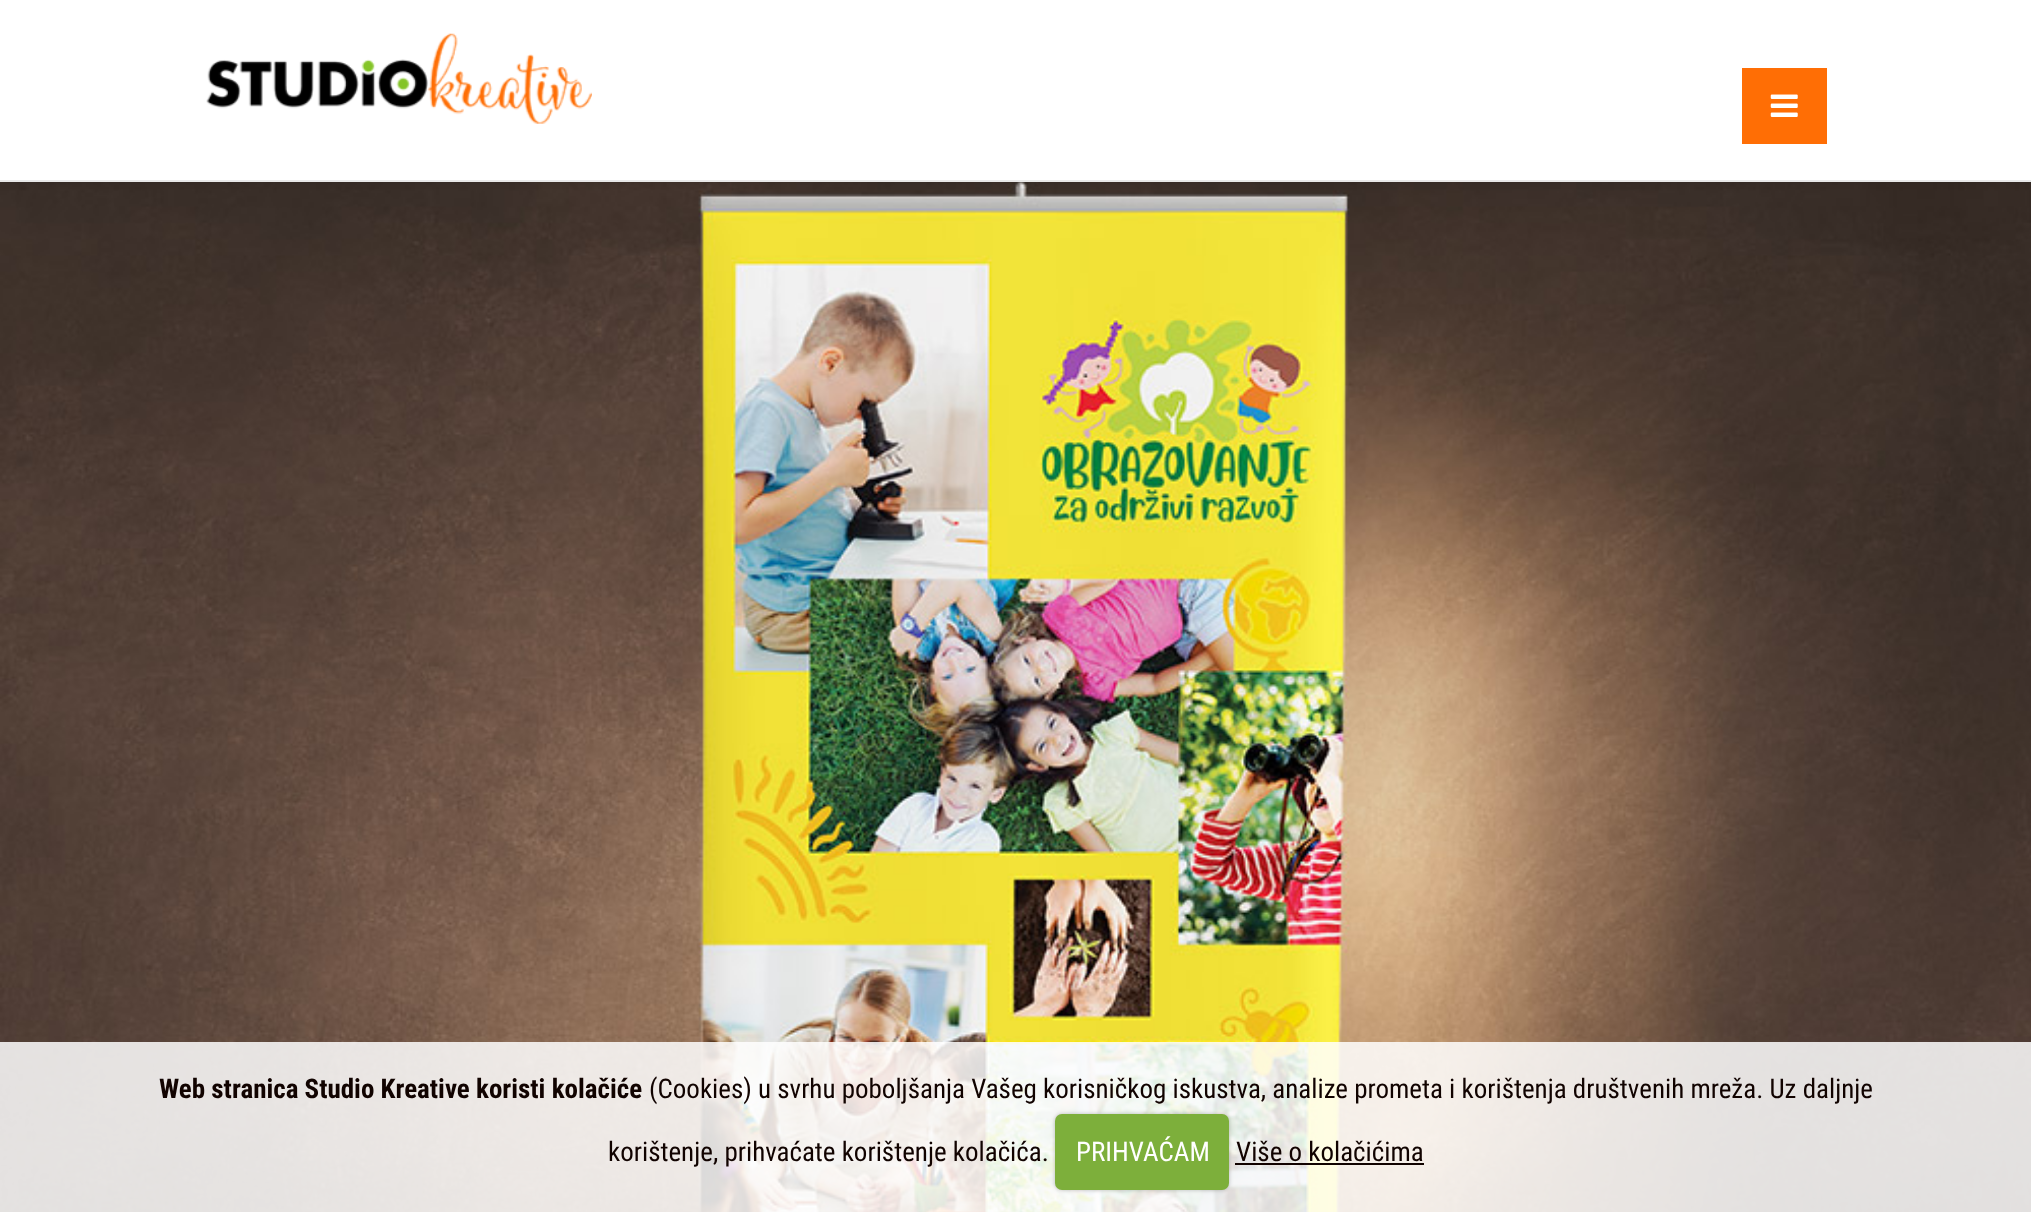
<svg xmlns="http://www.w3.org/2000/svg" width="2031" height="1212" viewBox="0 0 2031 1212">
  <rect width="100%" height="100%" fill="rgb(255,255,255)"/>
  <image x="0" y="182" width="2031" height="1030" href="pic3.png"/>
  <rect x="0" y="-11" width="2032" height="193" fill="rgba(0,0,0,0.1)" filter="blur(3.5px)"/>
  <rect x="0" y="0" width="2031" height="180" fill="rgb(255,255,255)"/>
  <rect x="0" y="180" width="2031" height="2" fill="rgb(233,233,233)"/>
  <image x="206" y="33" width="386" height="91" href="pic1.png"/>
  <rect x="1742" y="68" width="85" height="76" fill="rgb(255,110,5)"/>
  <image x="1770" y="94" width="28" height="23" href="pic2.png"/>
  <rect x="0" y="1042" width="2031" height="170" fill="rgba(255,255,255,0.85)"/>
  <text x="159" y="1098" font-family="Roboto Condensed" font-size="27" font-weight="bold" fill="rgb(17,3,0)">Web stranica Studio Kreative koristi kolačiće</text>
  <g font-family="Roboto Condensed" font-size="27" fill="rgb(17,3,0)">
    <text x="649" y="1098">(Cookies) u svrhu poboljšanja Vašeg korisničkog iskustva, analize prometa i korištenja društvenih mreža. Uz daljnje</text>
    <text x="608" y="1161">korištenje, prihvaćate korištenje kolačića.</text>
  </g>
  <rect x="1055" y="1114" width="174" height="76" rx="7" fill="rgba(0,0,0,0.25)" filter="blur(2px)"/>
  <rect x="1055" y="1114" width="174" height="76" rx="7" fill="rgb(125,175,59)"/>
  <text x="1076" y="1161" font-family="Roboto Condensed" font-size="27" fill="rgb(255,255,255)">PRIHVAĆAM</text>
  <text x="1236" y="1161" font-family="Roboto Condensed" font-size="27" fill="rgb(17,3,0)">Više o kolačićima</text>
  <rect x="1235" y="1163" width="189" height="2" fill="rgb(17,3,0)"/>
</svg>
